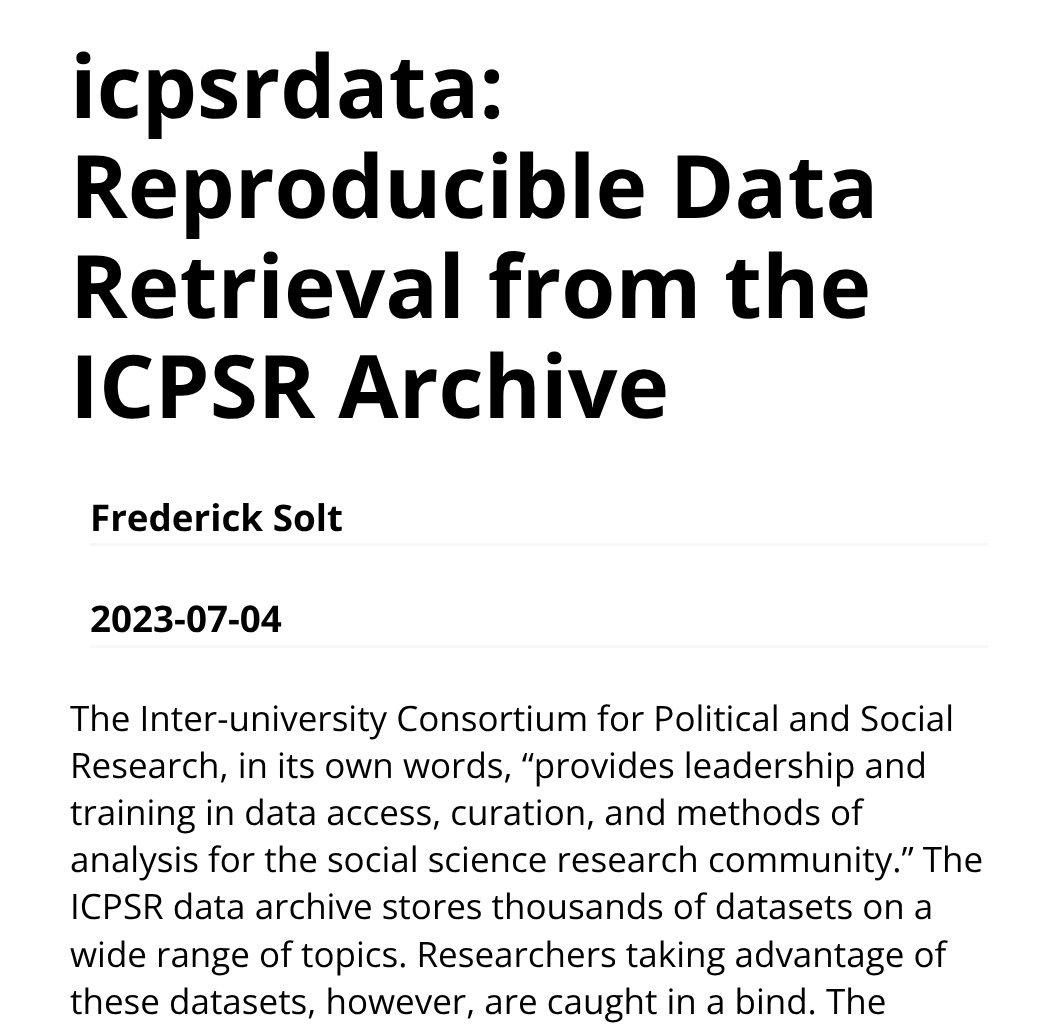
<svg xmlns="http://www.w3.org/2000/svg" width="1057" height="1032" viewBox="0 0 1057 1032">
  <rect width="100%" height="100%" fill="rgb(255,255,255)"/>
  <g font-family="Open Sans" font-size="87.5" font-weight="bold" fill="rgb(0,0,0)">
    <text>
      <tspan x="70" y="118">icpsrdata:</tspan>
      <tspan x="70" y="218">Reproducible Data</tspan>
      <tspan x="70" y="318">Retrieval from the</tspan>
      <tspan x="70" y="418">ICPSR Archive</tspan>
    </text>
  </g>
  <rect x="90" y="543" width="898" height="3" fill="rgb(247,247,247)"/>
  <text x="90" y="531" font-family="Open Sans" font-size="36.75" font-weight="bold" fill="rgb(0,0,0)">Frederick Solt</text>
  <rect x="90" y="645" width="898" height="3" fill="rgb(247,247,247)"/>
  <text x="90" y="632" font-family="Open Sans" font-size="36.75" font-weight="bold" fill="rgb(0,0,0)">2023-07-04</text>
  <g font-family="Open Sans" font-size="35" fill="rgb(0,0,0)">
    <text>
      <tspan x="70" y="731">The Inter-university Consortium for Political and Social</tspan>
      <tspan x="70" y="778">Research, in its own words, “provides leadership and</tspan>
      <tspan x="70" y="825">training in data access, curation, and methods of</tspan>
      <tspan x="70" y="872">analysis for the social science research community.” The</tspan>
      <tspan x="70" y="919">ICPSR data archive stores thousands of datasets on a</tspan>
      <tspan x="70" y="967">wide range of topics. Researchers taking advantage of</tspan>
      <tspan x="70" y="1014">these datasets, however, are caught in a bind. The</tspan>
    </text>
  </g>
</svg>
